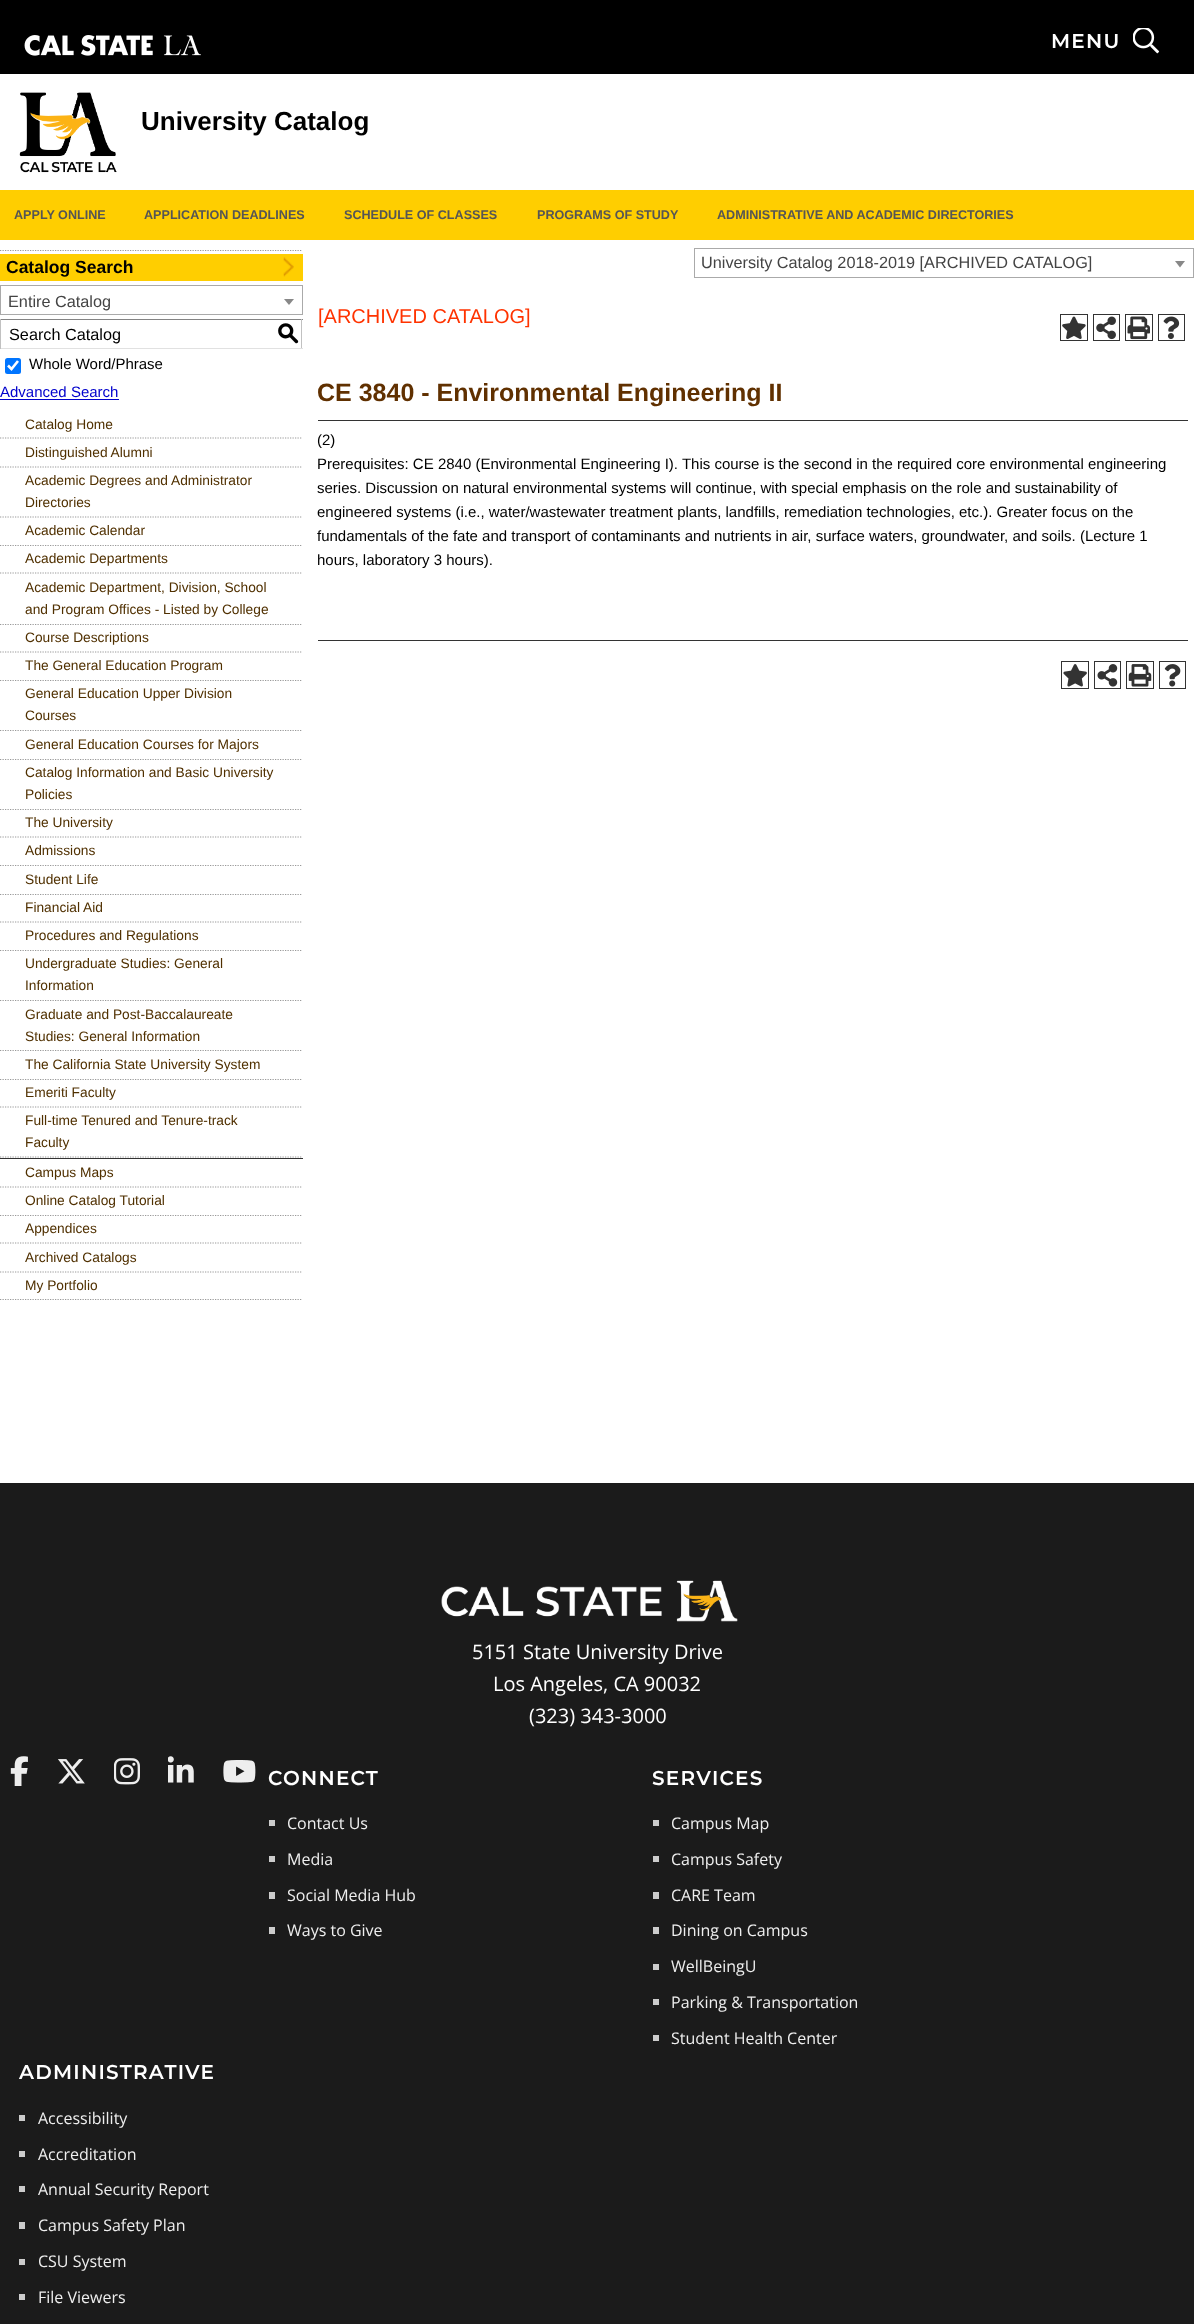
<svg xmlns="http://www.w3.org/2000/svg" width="1194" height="2324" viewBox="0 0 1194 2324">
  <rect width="100%" height="100%" fill="rgb(255,255,255)"/>
  <rect x="0" y="0" width="1194" height="74" fill="rgb(0,0,0)"/>
  <image x="24" y="35" width="177" height="21" href="pic1.png"/>
  <text x="1051" y="48" font-family="Montserrat" font-size="20" font-weight="600" letter-spacing="1.25" fill="rgb(255,255,255)">MENU</text>
  <image x="1133" y="28" width="27" height="26" href="pic2.png"/>
  <image x="19" y="92" width="98" height="81" href="pic3.png"/>
  <text x="141" y="130" font-family="Liberation Sans" font-size="26" font-weight="bold" fill="rgb(0,0,0)">University Catalog</text>
  <rect x="0" y="190" width="1194" height="50" fill="rgb(255,206,0)"/>
  <g font-family="Liberation Sans" font-size="12.6" font-weight="bold" fill="rgb(85,85,85)">
    <text x="14" y="219">APPLY ONLINE</text>
    <text x="144" y="219">APPLICATION DEADLINES</text>
    <text x="344" y="219">SCHEDULE OF CLASSES</text>
    <text x="537" y="219">PROGRAMS OF STUDY</text>
    <text x="717" y="219">ADMINISTRATIVE AND ACADEMIC DIRECTORIES</text>
  </g>
  <rect x="694.5" y="248.5" width="499" height="29" fill="none" stroke="rgb(170,170,170)"/>
  <text x="701" y="268" font-family="Liberation Sans" font-size="16.25" fill="rgb(68,68,68)">University Catalog 2018-2019 [ARCHIVED CATALOG]</text>
  <path d="M1175 261H1185L1180 267.5Z" fill="rgb(136,136,136)"/>
  <path d="M0 250.5H302.5" fill="none" stroke="rgb(153,153,153)" stroke-width="1.2" stroke-dasharray="1.25 1.25"/>
  <rect x="0" y="254" width="303" height="27" fill="rgb(255,206,0)"/>
  <image x="283" y="257" width="11" height="20" href="pic4.png"/>
  <text x="6" y="273" font-family="Liberation Sans" font-size="17.5" font-weight="bold" fill="rgb(0,0,0)">Catalog Search</text>
  <rect x="0.5" y="285.5" width="302" height="29" fill="none" stroke="rgb(170,170,170)"/>
  <text x="8" y="307" font-family="Liberation Sans" font-size="16.25" fill="rgb(68,68,68)">Entire Catalog</text>
  <path d="M284 299H294L289 305Z" fill="rgb(136,136,136)"/>
  <rect x="0" y="319" width="303" height="1" fill="rgb(132,132,132)"/>
  <rect x="301" y="319" width="1" height="30" fill="rgb(193,193,193)"/>
  <rect x="0" y="348" width="303" height="1" fill="rgb(225,225,225)"/>
  <rect x="0" y="319" width="1" height="30" fill="rgb(193,193,193)"/>
  <text x="9" y="340" font-family="Liberation Sans" font-size="16.25" fill="rgb(0,0,0)">Search Catalog</text>
  <text x="277" y="340" font-family="'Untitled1'" font-size="22" font-weight="500" fill="rgb(0,0,0)">S</text>
  <rect x="5" y="358" width="16" height="16" rx="2.5" fill="rgb(0,117,255)"/>
  <path d="M8 365.5L11.5 369L18 361" fill="none" stroke="rgb(255,255,255)" stroke-width="2.6"/>
  <text x="29" y="369" font-family="Liberation Sans" font-size="15" fill="rgb(0,0,0)">Whole Word/Phrase</text>
  <text x="0" y="397" font-family="Liberation Sans" font-size="15" fill="rgb(0,0,204)">Advanced Search</text>
  <rect x="0" y="399" width="119" height="1" fill="rgb(0,0,204)"/>
  <path d="M0 438H302.5" fill="none" stroke="rgb(153,153,153)" stroke-width="1.2" stroke-dasharray="1.25 1.25"/>
  <text x="25" y="429" font-family="Liberation Sans" font-size="13.75" fill="rgb(80,48,0)">Catalog Home</text>
  <path d="M0 467H302.5" fill="none" stroke="rgb(153,153,153)" stroke-width="1.2" stroke-dasharray="1.25 1.25"/>
  <text x="25" y="457" font-family="Liberation Sans" font-size="13.75" fill="rgb(80,48,0)">Distinguished Alumni</text>
  <path d="M0 517H302.5" fill="none" stroke="rgb(153,153,153)" stroke-width="1.2" stroke-dasharray="1.25 1.25"/>
  <g font-family="Liberation Sans" font-size="13.75" fill="rgb(80,48,0)">
    <text>
      <tspan x="25" y="485">Academic Degrees and Administrator</tspan>
      <tspan x="25" y="507">Directories</tspan>
    </text>
  </g>
  <path d="M0 545.5H302.5" fill="none" stroke="rgb(153,153,153)" stroke-width="1.2" stroke-dasharray="1.25 1.25"/>
  <text x="25" y="535" font-family="Liberation Sans" font-size="13.75" fill="rgb(80,48,0)">Academic Calendar</text>
  <path d="M0 573H302.5" fill="none" stroke="rgb(153,153,153)" stroke-width="1.2" stroke-dasharray="1.25 1.25"/>
  <text x="25" y="563" font-family="Liberation Sans" font-size="13.75" fill="rgb(80,48,0)">Academic Departments</text>
  <path d="M0 624.5H302.5" fill="none" stroke="rgb(153,153,153)" stroke-width="1.2" stroke-dasharray="1.25 1.25"/>
  <g font-family="Liberation Sans" font-size="13.75" fill="rgb(80,48,0)">
    <text>
      <tspan x="25" y="592">Academic Department, Division, School</tspan>
      <tspan x="25" y="614">and Program Offices - Listed by College</tspan>
    </text>
  </g>
  <path d="M0 652H302.5" fill="none" stroke="rgb(153,153,153)" stroke-width="1.2" stroke-dasharray="1.25 1.25"/>
  <text x="25" y="642" font-family="Liberation Sans" font-size="13.75" fill="rgb(80,48,0)">Course Descriptions</text>
  <path d="M0 680.5H302.5" fill="none" stroke="rgb(153,153,153)" stroke-width="1.2" stroke-dasharray="1.25 1.25"/>
  <text x="25" y="670" font-family="Liberation Sans" font-size="13.75" fill="rgb(80,48,0)">The General Education Program</text>
  <path d="M0 730.5H302.5" fill="none" stroke="rgb(153,153,153)" stroke-width="1.2" stroke-dasharray="1.25 1.25"/>
  <g font-family="Liberation Sans" font-size="13.75" fill="rgb(80,48,0)">
    <text>
      <tspan x="25" y="698">General Education Upper Division</tspan>
      <tspan x="25" y="720">Courses</tspan>
    </text>
  </g>
  <path d="M0 759.5H302.5" fill="none" stroke="rgb(153,153,153)" stroke-width="1.2" stroke-dasharray="1.25 1.25"/>
  <text x="25" y="749" font-family="Liberation Sans" font-size="13.75" fill="rgb(80,48,0)">General Education Courses for Majors</text>
  <path d="M0 809.5H302.5" fill="none" stroke="rgb(153,153,153)" stroke-width="1.2" stroke-dasharray="1.25 1.25"/>
  <g font-family="Liberation Sans" font-size="13.75" fill="rgb(80,48,0)">
    <text>
      <tspan x="25" y="777">Catalog Information and Basic University</tspan>
      <tspan x="25" y="799">Policies</tspan>
    </text>
  </g>
  <path d="M0 837H302.5" fill="none" stroke="rgb(153,153,153)" stroke-width="1.2" stroke-dasharray="1.25 1.25"/>
  <text x="25" y="827" font-family="Liberation Sans" font-size="13.75" fill="rgb(80,48,0)">The University</text>
  <path d="M0 865.5H302.5" fill="none" stroke="rgb(153,153,153)" stroke-width="1.2" stroke-dasharray="1.25 1.25"/>
  <text x="25" y="855" font-family="Liberation Sans" font-size="13.75" fill="rgb(80,48,0)">Admissions</text>
  <path d="M0 894.5H302.5" fill="none" stroke="rgb(153,153,153)" stroke-width="1.2" stroke-dasharray="1.25 1.25"/>
  <text x="25" y="884" font-family="Liberation Sans" font-size="13.75" fill="rgb(80,48,0)">Student Life</text>
  <path d="M0 922H302.5" fill="none" stroke="rgb(153,153,153)" stroke-width="1.2" stroke-dasharray="1.25 1.25"/>
  <text x="25" y="912" font-family="Liberation Sans" font-size="13.75" fill="rgb(80,48,0)">Financial Aid</text>
  <path d="M0 950.5H302.5" fill="none" stroke="rgb(153,153,153)" stroke-width="1.2" stroke-dasharray="1.25 1.25"/>
  <text x="25" y="940" font-family="Liberation Sans" font-size="13.75" fill="rgb(80,48,0)">Procedures and Regulations</text>
  <path d="M0 1000.5H302.5" fill="none" stroke="rgb(153,153,153)" stroke-width="1.2" stroke-dasharray="1.25 1.25"/>
  <g font-family="Liberation Sans" font-size="13.75" fill="rgb(80,48,0)">
    <text>
      <tspan x="25" y="968">Undergraduate Studies: General</tspan>
      <tspan x="25" y="990">Information</tspan>
    </text>
  </g>
  <path d="M0 1050.5H302.5" fill="none" stroke="rgb(153,153,153)" stroke-width="1.2" stroke-dasharray="1.25 1.25"/>
  <g font-family="Liberation Sans" font-size="13.75" fill="rgb(80,48,0)">
    <text>
      <tspan x="25" y="1019">Graduate and Post-Baccalaureate</tspan>
      <tspan x="25" y="1041">Studies: General Information</tspan>
    </text>
  </g>
  <path d="M0 1079.5H302.5" fill="none" stroke="rgb(153,153,153)" stroke-width="1.2" stroke-dasharray="1.25 1.25"/>
  <text x="25" y="1069" font-family="Liberation Sans" font-size="13.75" fill="rgb(80,48,0)">The California State University System</text>
  <path d="M0 1107H302.5" fill="none" stroke="rgb(153,153,153)" stroke-width="1.2" stroke-dasharray="1.25 1.25"/>
  <text x="25" y="1097" font-family="Liberation Sans" font-size="13.75" fill="rgb(80,48,0)">Emeriti Faculty</text>
  <path d="M0 1157H302.5" fill="none" stroke="rgb(153,153,153)" stroke-width="1.2" stroke-dasharray="1.25 1.25"/>
  <g font-family="Liberation Sans" font-size="13.75" fill="rgb(80,48,0)">
    <text>
      <tspan x="25" y="1125">Full-time Tenured and Tenure-track</tspan>
      <tspan x="25" y="1147">Faculty</tspan>
    </text>
  </g>
  <rect x="0" y="1158" width="303" height="1" fill="rgb(51,51,51)"/>
  <path d="M0 1187H302.5" fill="none" stroke="rgb(153,153,153)" stroke-width="1.2" stroke-dasharray="1.25 1.25"/>
  <text x="25" y="1177" font-family="Liberation Sans" font-size="13.75" fill="rgb(80,48,0)">Campus Maps</text>
  <path d="M0 1215.5H302.5" fill="none" stroke="rgb(153,153,153)" stroke-width="1.2" stroke-dasharray="1.25 1.25"/>
  <text x="25" y="1205" font-family="Liberation Sans" font-size="13.75" fill="rgb(80,48,0)">Online Catalog Tutorial</text>
  <path d="M0 1243H302.5" fill="none" stroke="rgb(153,153,153)" stroke-width="1.2" stroke-dasharray="1.25 1.25"/>
  <text x="25" y="1233" font-family="Liberation Sans" font-size="13.75" fill="rgb(80,48,0)">Appendices</text>
  <path d="M0 1272H302.5" fill="none" stroke="rgb(153,153,153)" stroke-width="1.2" stroke-dasharray="1.25 1.25"/>
  <text x="25" y="1262" font-family="Liberation Sans" font-size="13.75" fill="rgb(80,48,0)">Archived Catalogs</text>
  <path d="M0 1299.5H302.5" fill="none" stroke="rgb(153,153,153)" stroke-width="1.2" stroke-dasharray="1.25 1.25"/>
  <text x="25" y="1290" font-family="Liberation Sans" font-size="13.75" fill="rgb(80,48,0)">My Portfolio</text>
  <text x="318" y="323" font-family="Liberation Sans" font-size="20" fill="rgb(255,51,0)">[ARCHIVED CATALOG]</text>
  <rect x="1060.5" y="314.5" width="27" height="26" fill="none" stroke="rgb(51,51,51)"/>
  <image x="1062" y="316" width="24" height="23" href="pic5.png"/>
  <rect x="1093.5" y="314.5" width="26" height="26" fill="none" stroke="rgb(51,51,51)"/>
  <image x="1096" y="316" width="20" height="24" href="pic6.png"/>
  <rect x="1125.5" y="314.5" width="27" height="26" fill="none" stroke="rgb(51,51,51)"/>
  <image x="1127" y="316" width="23" height="24" href="pic7.png"/>
  <rect x="1158.5" y="314.5" width="26" height="26" fill="none" stroke="rgb(51,51,51)"/>
  <image x="1163" y="316" width="17" height="23" href="pic8.png"/>
  <text x="317" y="401" font-family="Liberation Sans" font-size="25" font-weight="bold" fill="rgb(96,48,0)">CE 3840 - Environmental Engineering II</text>
  <rect x="318" y="420" width="870" height="1" fill="rgb(51,51,51)"/>
  <g font-family="Liberation Sans" font-size="15" fill="rgb(0,0,0)">
    <text>
      <tspan x="317" y="445">(2)</tspan>
      <tspan x="317" y="469">Prerequisites: CE 2840 (Environmental Engineering I). This course is the second in the required core environmental engineering</tspan>
      <tspan x="317" y="493">series. Discussion on natural environmental systems will continue, with special emphasis on the role and sustainability of</tspan>
      <tspan x="317" y="517">engineered systems (i.e., water/wastewater treatment plants, landfills, remediation technologies, etc.). Greater focus on the</tspan>
      <tspan x="317" y="541">fundamentals of the fate and transport of contaminants and nutrients in air, surface waters, groundwater, and soils. (Lecture 1</tspan>
      <tspan x="317" y="565">hours, laboratory 3 hours).</tspan>
    </text>
  </g>
  <rect x="318" y="640" width="870" height="1" fill="rgb(51,51,51)"/>
  <rect x="1061.5" y="661.5" width="27" height="27" fill="none" stroke="rgb(51,51,51)"/>
  <image x="1063" y="664" width="24" height="23" href="pic9.png"/>
  <rect x="1094.5" y="661.5" width="26" height="27" fill="none" stroke="rgb(51,51,51)"/>
  <image x="1097" y="664" width="21" height="23" href="pic10.png"/>
  <rect x="1126.5" y="661.5" width="27" height="27" fill="none" stroke="rgb(51,51,51)"/>
  <image x="1128" y="664" width="24" height="23" href="pic11.png"/>
  <rect x="1159.5" y="661.5" width="26" height="27" fill="none" stroke="rgb(51,51,51)"/>
  <image x="1164" y="664" width="17" height="23" href="pic12.png"/>
  <rect x="0" y="1483" width="1194" height="841" fill="rgb(27,27,27)"/>
  <image x="441" y="1580" width="297" height="42" href="pic13.png"/>
  <g font-family="Open Sans" font-size="20" fill="rgb(255,255,255)">
    <text x="472" y="1659">5151 State University Drive</text>
    <text x="493" y="1691">Los Angeles, CA 90032</text>
    <text x="529" y="1723">(323) 343-3000</text>
  </g>
  <image x="10" y="1756" width="18" height="30" href="pic14.png"/>
  <image x="58" y="1759" width="27" height="25" href="pic15.png"/>
  <image x="114" y="1758" width="26" height="27" href="pic16.png"/>
  <image x="168" y="1756" width="26" height="27" href="pic17.png"/>
  <image x="223" y="1760" width="33" height="23" href="pic18.png"/>
  <text x="268" y="1785" font-family="Montserrat" font-size="20" font-weight="600" letter-spacing="1.25" fill="rgb(255,255,255)">CONNECT</text>
  <rect x="269" y="1820" width="6" height="6" fill="rgb(204,204,204)"/>
  <text x="287" y="1829" font-family="Open Sans" font-size="16" fill="rgb(238,238,238)">Contact Us</text>
  <rect x="269" y="1856" width="6" height="6" fill="rgb(204,204,204)"/>
  <text x="287" y="1865" font-family="Open Sans" font-size="16" fill="rgb(238,238,238)">Media</text>
  <rect x="269" y="1892" width="6" height="7" fill="rgb(204,204,204)"/>
  <text x="287" y="1901" font-family="Open Sans" font-size="16" fill="rgb(238,238,238)">Social Media Hub</text>
  <rect x="269" y="1927" width="6" height="7" fill="rgb(204,204,204)"/>
  <text x="287" y="1936" font-family="Open Sans" font-size="16" fill="rgb(238,238,238)">Ways to Give</text>
  <text x="652" y="1785" font-family="Montserrat" font-size="20" font-weight="600" letter-spacing="1.25" fill="rgb(255,255,255)">SERVICES</text>
  <rect x="653" y="1820" width="6" height="6" fill="rgb(204,204,204)"/>
  <text x="671" y="1829" font-family="Open Sans" font-size="16" fill="rgb(238,238,238)">Campus Map</text>
  <rect x="653" y="1856" width="6" height="6" fill="rgb(204,204,204)"/>
  <text x="671" y="1865" font-family="Open Sans" font-size="16" fill="rgb(238,238,238)">Campus Safety</text>
  <rect x="653" y="1892" width="6" height="7" fill="rgb(204,204,204)"/>
  <text x="671" y="1901" font-family="Open Sans" font-size="16" fill="rgb(238,238,238)">CARE Team</text>
  <rect x="653" y="1927" width="6" height="7" fill="rgb(204,204,204)"/>
  <text x="671" y="1936" font-family="Open Sans" font-size="16" fill="rgb(238,238,238)">Dining on Campus</text>
  <rect x="653" y="1964" width="6" height="6" fill="rgb(204,204,204)"/>
  <text x="671" y="1972" font-family="Open Sans" font-size="16" fill="rgb(238,238,238)">WellBeingU</text>
  <rect x="653" y="1999" width="6" height="6" fill="rgb(204,204,204)"/>
  <text x="671" y="2008" font-family="Open Sans" font-size="16" fill="rgb(238,238,238)">Parking &amp; Transportation</text>
  <rect x="653" y="2035" width="6" height="6" fill="rgb(204,204,204)"/>
  <text x="671" y="2044" font-family="Open Sans" font-size="16" fill="rgb(238,238,238)">Student Health Center</text>
  <text x="19" y="2079" font-family="Montserrat" font-size="20" font-weight="600" letter-spacing="1.25" fill="rgb(255,255,255)">ADMINISTRATIVE</text>
  <rect x="19" y="2115" width="6" height="6" fill="rgb(204,204,204)"/>
  <text x="38" y="2124" font-family="Open Sans" font-size="16" fill="rgb(238,238,238)">Accessibility</text>
  <rect x="19" y="2151" width="6" height="6" fill="rgb(204,204,204)"/>
  <text x="38" y="2160" font-family="Open Sans" font-size="16" fill="rgb(238,238,238)">Accreditation</text>
  <rect x="19" y="2186" width="6" height="6" fill="rgb(204,204,204)"/>
  <text x="38" y="2195" font-family="Open Sans" font-size="16" fill="rgb(238,238,238)">Annual Security Report</text>
  <rect x="19" y="2222" width="6" height="7" fill="rgb(204,204,204)"/>
  <text x="38" y="2231" font-family="Open Sans" font-size="16" fill="rgb(238,238,238)">Campus Safety Plan</text>
  <rect x="19" y="2259" width="6" height="6" fill="rgb(204,204,204)"/>
  <text x="38" y="2267" font-family="Open Sans" font-size="16" fill="rgb(238,238,238)">CSU System</text>
  <rect x="19" y="2294" width="6" height="6" fill="rgb(204,204,204)"/>
  <text x="38" y="2303" font-family="Open Sans" font-size="16" fill="rgb(238,238,238)">File Viewers</text>
</svg>
